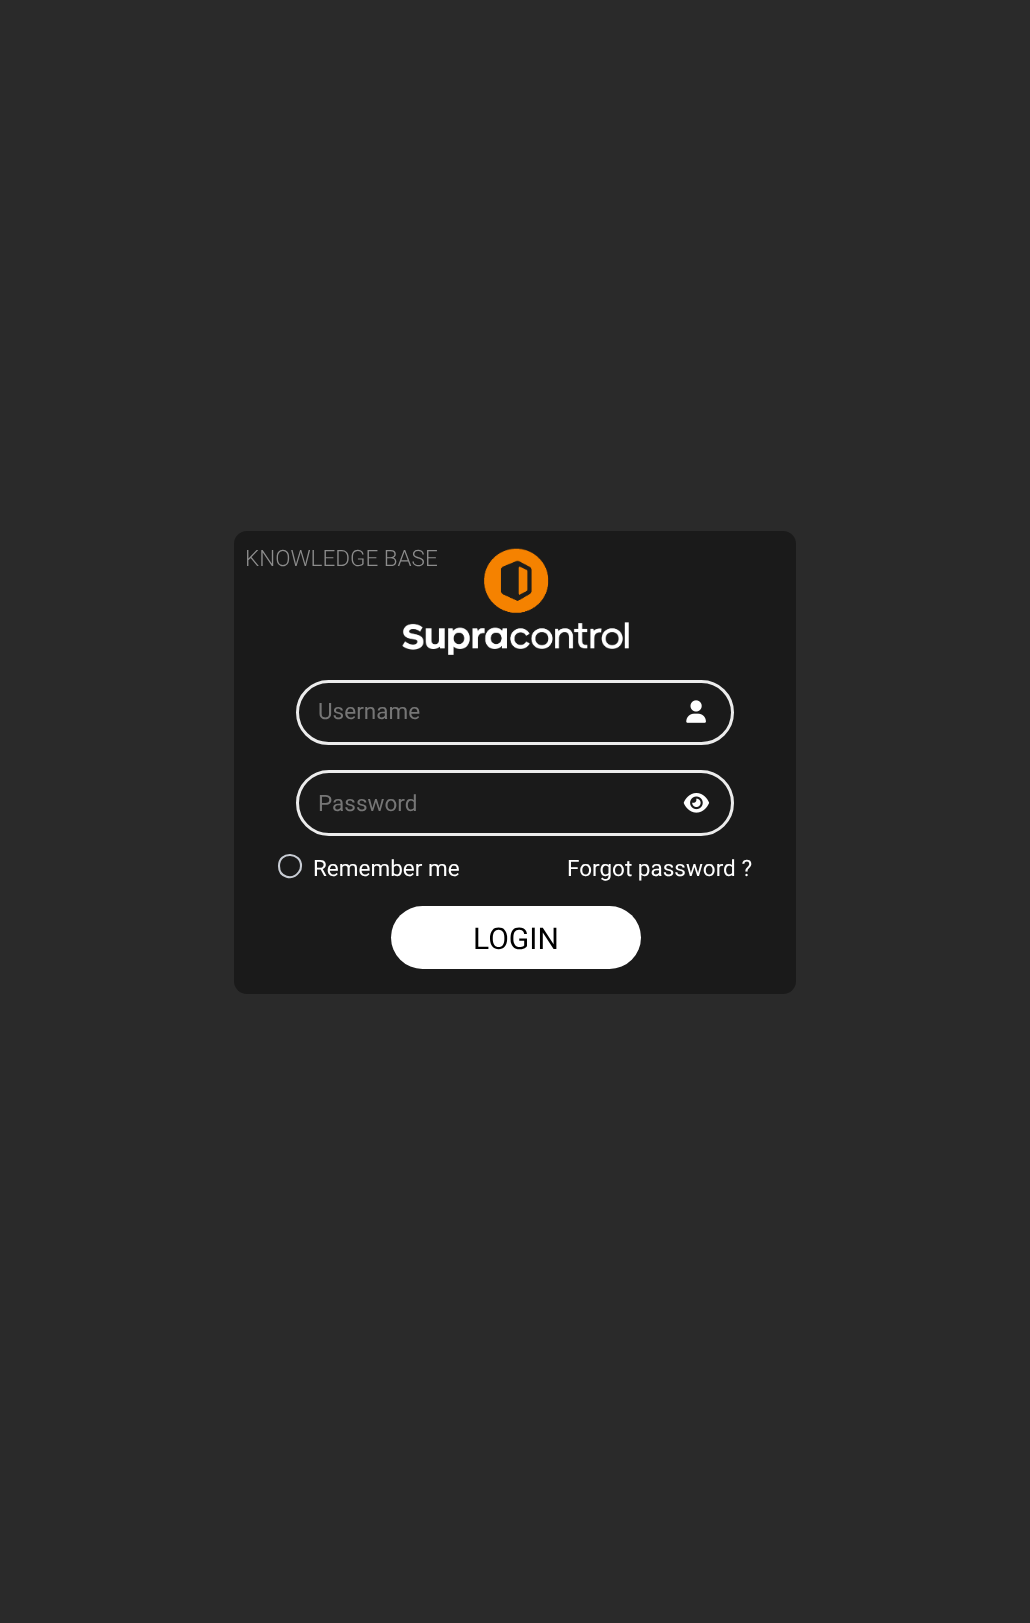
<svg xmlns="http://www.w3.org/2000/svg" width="1030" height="1623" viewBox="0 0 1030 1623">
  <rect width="100%" height="100%" fill="rgb(42,42,42)"/>
  <rect x="234" y="531" width="562" height="463" rx="13" fill="rgb(26,26,26)"/>
  <image x="402" y="548" width="227" height="107" href="pic1.png"/>
  <text x="245" y="566" font-family="Roboto" font-size="22.5" font-weight="300" fill="rgb(141,141,141)">KNOWLEDGE BASE</text>
  <rect x="297.5" y="681.5" width="435" height="62" rx="31" fill="none" stroke="rgb(236,236,236)" stroke-width="3"/>
  <text x="318" y="719" font-family="Roboto" font-size="22.5" fill="rgb(118,118,118)">Username</text>
  <image x="686" y="700" width="20" height="23" href="pic2.png"/>
  <rect x="297.5" y="771.5" width="435" height="63" rx="31.5" fill="none" stroke="rgb(236,236,236)" stroke-width="3"/>
  <text x="318" y="811" font-family="Roboto" font-size="22.5" fill="rgb(118,118,118)">Password</text>
  <image x="683" y="793" width="27" height="20" href="pic3.png"/>
  <path d="M279 866C279 850.5 301.5 852 301 866C301 868.5 300.5 870.5 299 872C292.5 881 279 877.5 279 866" fill="none" stroke="rgb(200,204,212)" stroke-width="2.1" stroke-linecap="round" stroke-linejoin="round"/>
  <g font-family="Roboto" font-size="22.5" fill="rgb(255,255,255)">
    <text x="313" y="876">Remember me</text>
    <text x="567" y="876">Forgot password ?</text>
  </g>
  <rect x="391" y="906" width="250" height="63" rx="31.5" fill="rgb(255,255,255)"/>
  <text x="473" y="949" font-family="Roboto" font-size="30" fill="rgb(0,0,0)">LOGIN</text>
</svg>
